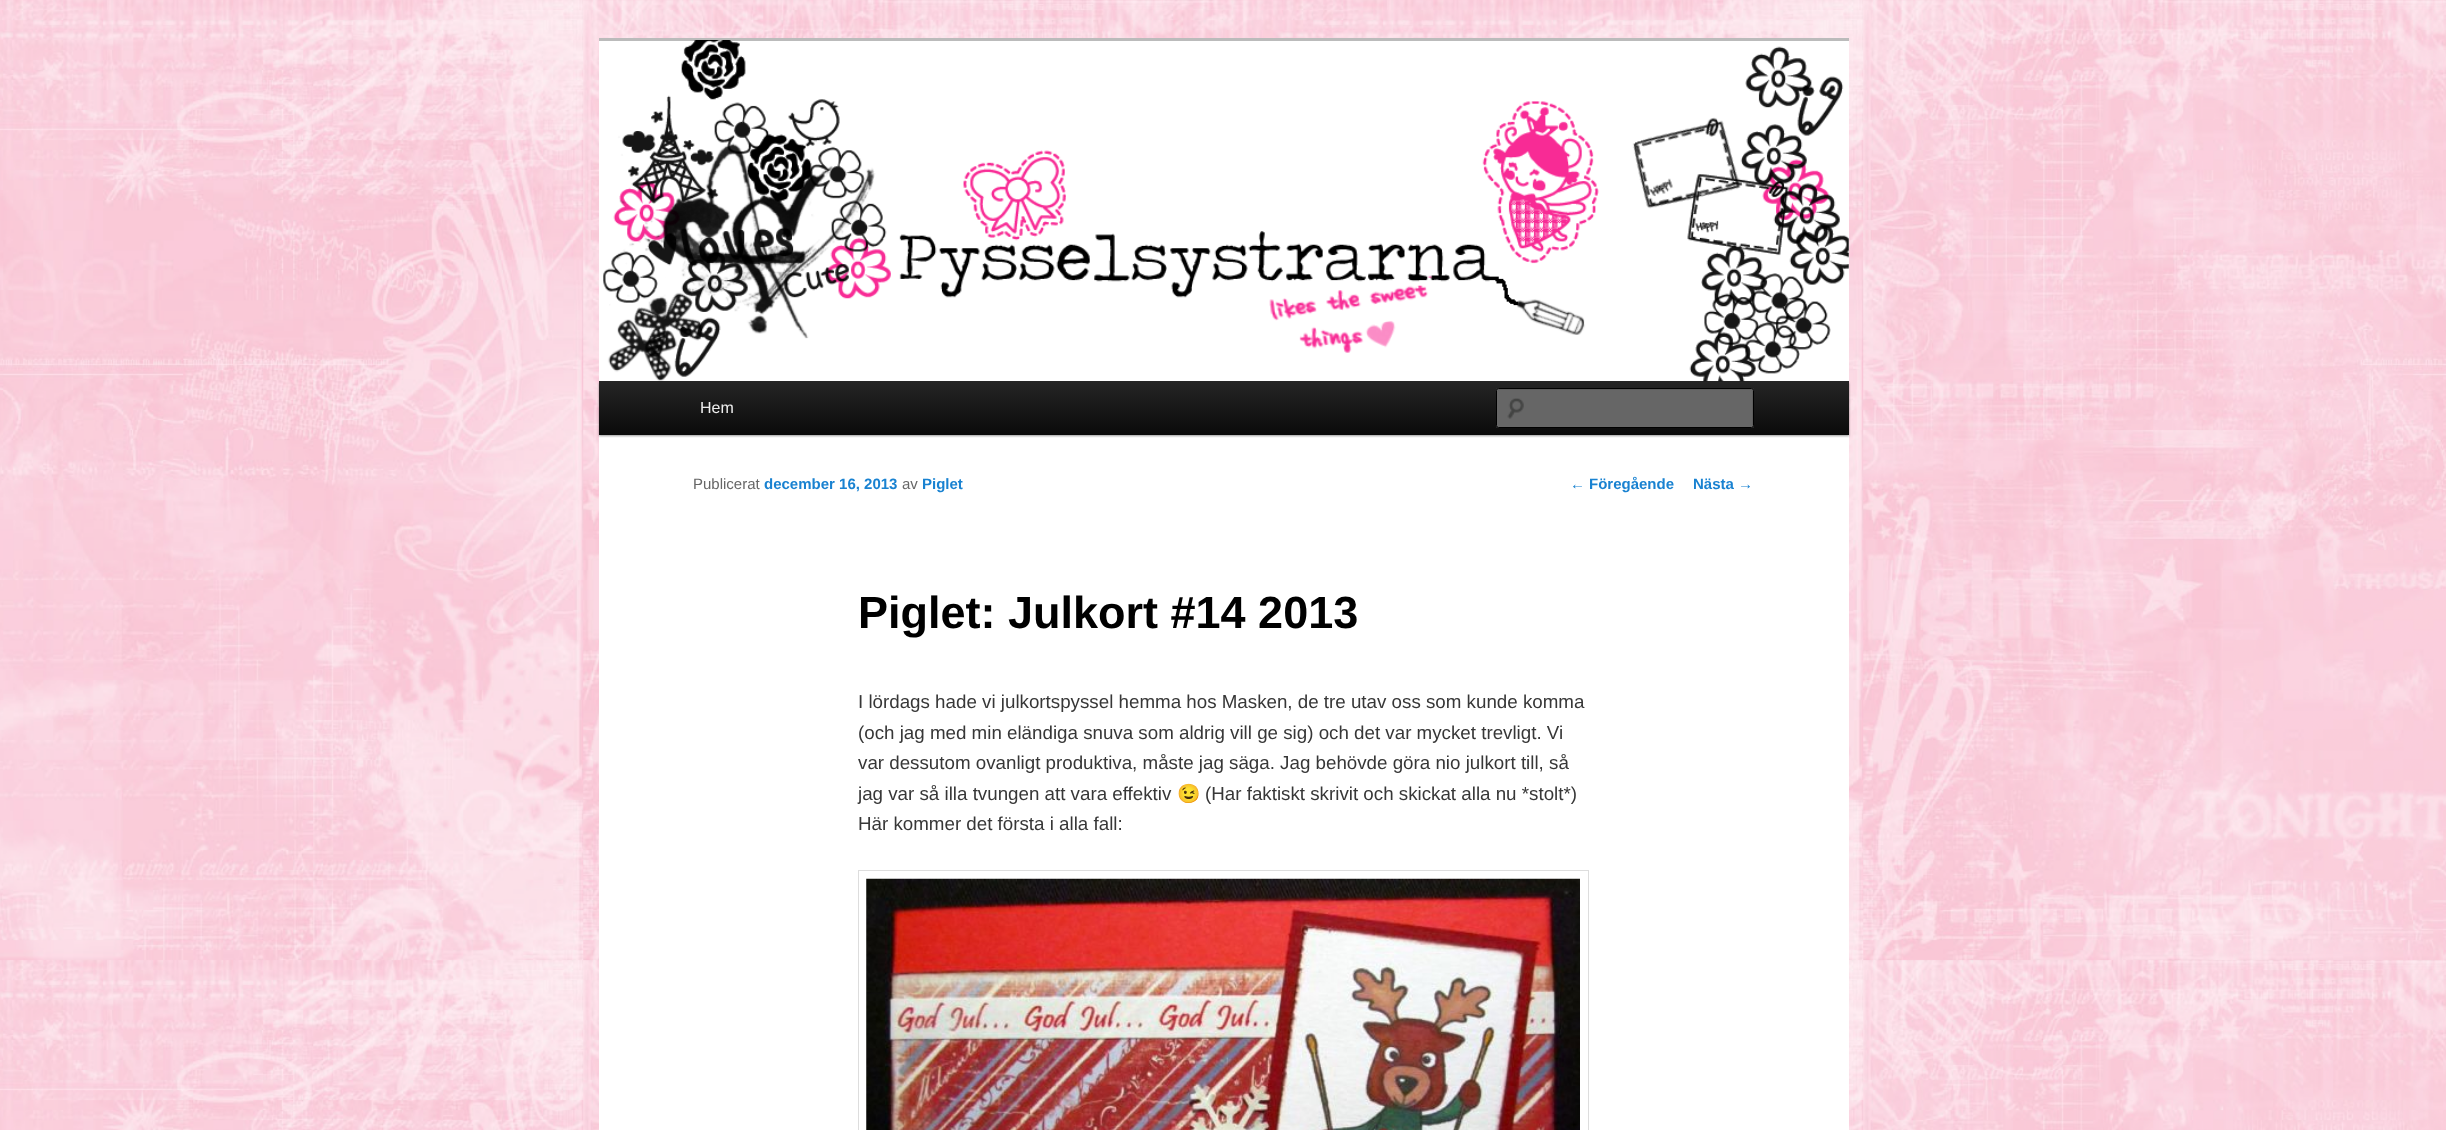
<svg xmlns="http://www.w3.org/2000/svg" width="2446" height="1130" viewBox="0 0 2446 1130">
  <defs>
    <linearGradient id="g1" gradientUnits="userSpaceOnUse" x1="1224" y1="381" x2="1224" y2="435"><stop offset="0" stop-color="rgb(37,37,37)"/><stop offset="1" stop-color="rgb(10,10,10)"/></linearGradient>
  </defs>
  <rect width="100%" height="100%" fill="rgb(255,255,255)"/>
  <image x="0" y="0" width="2446" height="1130" href="pic1.png"/>
  <rect x="599" y="41" width="1250" height="1089" fill="rgb(255,255,255)"/>
  <rect x="599" y="38" width="1250" height="3" fill="rgb(187,187,187)"/>
  <rect x="599" y="383" width="1250" height="53" fill="rgba(0,0,0,0.4)" filter="blur(1px)"/>
  <rect x="599" y="381" width="1250" height="54" fill="url(#g1)"/>
  <image x="603" y="40" width="1246" height="342" href="pic2.png"/>
  <text x="700" y="413" font-family="Liberation Sans" font-size="16" fill="rgb(238,238,238)">Hem</text>
  <rect x="1496" y="388" width="258" height="40" rx="2.5" fill="rgb(102,102,102)"/>
  <image x="1507" y="398" width="17" height="21" href="pic3.png"/>
  <path d="M1499 390H1751C1752 390 1752 391 1752 391V426L1753 425V390L1752 389H1498V391Z" fill="rgb(92,92,92)"/>
  <rect x="1496.5" y="388.5" width="257" height="39" rx="2" fill="none" stroke="rgb(0,0,0)"/>
  <text x="693" y="489" font-family="Liberation Sans" font-size="15" fill="rgb(102,102,102)">Publicerat</text>
  <text x="764" y="489" font-family="Liberation Sans" font-size="15" font-weight="bold" fill="rgb(25,130,209)">december 16, 2013</text>
  <text x="902" y="489" font-family="Liberation Sans" font-size="15" fill="rgb(102,102,102)">av</text>
  <text x="922" y="489" font-family="Liberation Sans" font-size="15" font-weight="bold" fill="rgb(25,130,209)">Piglet</text>
  <text x="858" y="628" font-family="Liberation Sans" font-size="45" font-weight="bold" fill="rgb(0,0,0)">Piglet: Julkort #14 2013</text>
  <g font-family="Liberation Sans" font-size="18.75" fill="rgb(55,55,55)">
    <text>
      <tspan x="858" y="708">I lördags hade vi julkortspyssel hemma hos Masken, de tre utav oss som kunde komma</tspan>
      <tspan x="858" y="739">(och jag med min eländiga snuva som aldrig vill ge sig) och det var mycket trevligt. Vi</tspan>
      <tspan x="858" y="769">var dessutom ovanligt produktiva, måste jag säga. Jag behövde göra nio julkort till, så</tspan>
      <tspan x="858" y="800">jag var så illa tvungen att vara effektiv</tspan>
    </text>
  </g>
  <text x="1177" y="800" font-family="Noto Color Emoji" font-size="18.75" fill="rgb(55,55,55)">😉</text>
  <g font-family="Liberation Sans" font-size="18.75" fill="rgb(55,55,55)">
    <text x="1205" y="800">(Har faktiskt skrivit och skickat alla nu *stolt*)</text>
    <text x="858" y="830">Här kommer det första i alla fall:</text>
  </g>
  <rect x="858.5" y="870.5" width="730" height="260" fill="none" stroke="rgb(221,221,221)"/>
  <image x="866" y="878" width="714" height="252" href="pic4.png"/>
  <text x="1570" y="489" font-family="Liberation Sans" font-size="15" fill="rgb(25,130,209)">←</text>
  <g font-family="Liberation Sans" font-size="15" font-weight="bold" fill="rgb(25,130,209)">
    <text x="1589" y="489">Föregående</text>
    <text x="1693" y="489">Nästa</text>
  </g>
  <text x="1738" y="489" font-family="Liberation Sans" font-size="15" fill="rgb(25,130,209)">→</text>
</svg>
